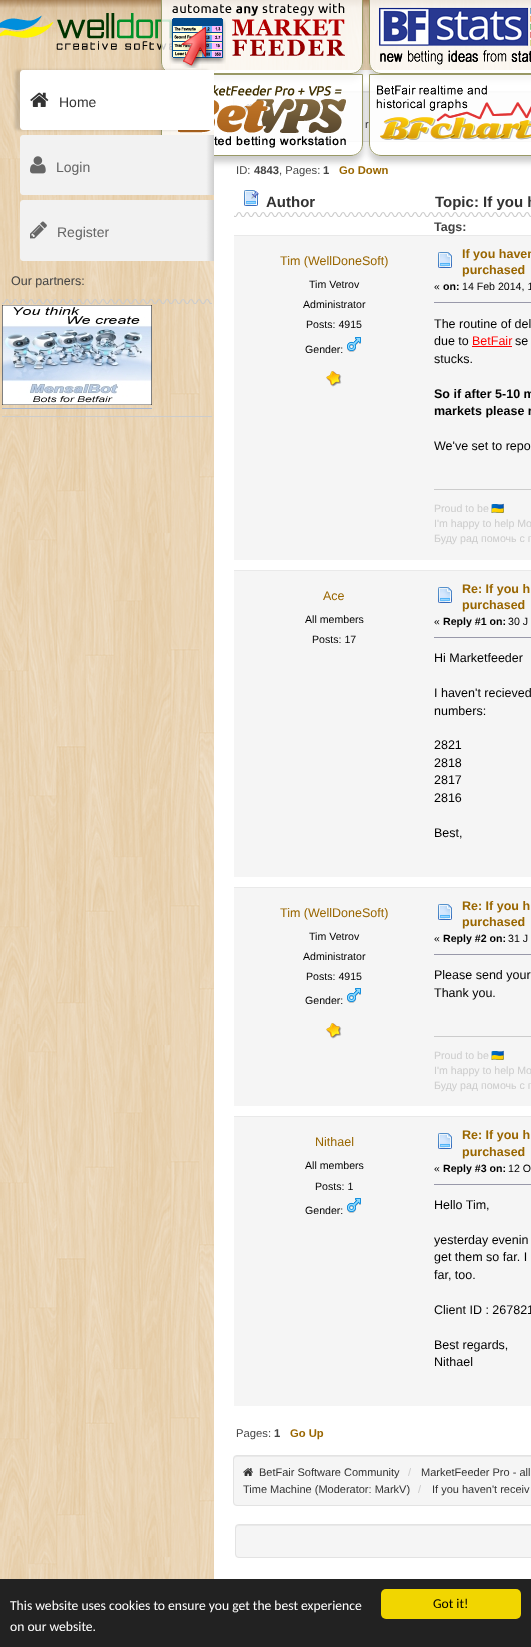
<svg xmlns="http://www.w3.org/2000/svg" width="531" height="1647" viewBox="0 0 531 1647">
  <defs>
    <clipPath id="clip1"><path d="M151 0H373V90H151ZM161-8H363V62C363 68.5 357.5 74 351 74H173C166.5 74 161 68.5 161 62Z" clip-rule="evenodd"/></clipPath>
    <clipPath id="clip2"><path d="M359 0H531V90H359ZM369-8H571V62C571 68.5 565.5 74 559 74H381C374.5 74 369 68.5 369 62Z" clip-rule="evenodd"/></clipPath>
    <clipPath id="clip3"><path d="M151 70H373V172H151ZM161 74H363V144C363 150.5 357.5 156 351 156H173C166.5 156 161 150.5 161 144Z" clip-rule="evenodd"/></clipPath>
    <clipPath id="clip4"><path d="M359 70H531V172H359ZM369 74H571V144C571 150.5 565.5 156 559 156H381C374.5 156 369 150.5 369 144Z" clip-rule="evenodd"/></clipPath>
    <linearGradient id="g1" gradientUnits="userSpaceOnUse" x1="20" y1="165" x2="214" y2="165"><stop offset="0" stop-color="rgb(242,242,242)"/><stop offset="0.96" stop-color="rgb(242,242,242)"/><stop offset="1" stop-color="rgb(206,206,206)"/></linearGradient>
    <linearGradient id="g2" gradientUnits="userSpaceOnUse" x1="20" y1="231" x2="214" y2="231"><stop offset="0" stop-color="rgb(242,242,242)"/><stop offset="0.96" stop-color="rgb(242,242,242)"/><stop offset="1" stop-color="rgb(206,206,206)"/></linearGradient>
  </defs>
  <rect width="100%" height="100%" fill="rgb(255,255,255)"/>
  <image x="0" y="0" width="531" height="1579" href="pic1.png"/>
  <image x="0" y="13" width="172" height="37" href="pic2.png"/>
  <rect x="214" y="70" width="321" height="1536" rx="4" fill="rgb(255,255,255)"/>
  <g clip-path="url(#clip1)">
    <rect x="161" y="-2" width="202" height="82" rx="12" fill="rgba(0,0,0,0.2)" filter="blur(3px)"/>
  </g>
  <path d="M161-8H363V62C363 68.5 357.5 74 351 74H173C166.5 74 161 68.5 161 62Z" fill="rgba(255,255,255,0.8)"/>
  <image x="169" y="3" width="176" height="65" href="pic3.png"/>
  <path d="M161.5-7.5H362.5V62C362.5 68.5 357.5 73.5 351 73.5H173C166.5 73.5 161.5 68.5 161.5 62Z" fill="none" stroke="rgb(153,153,102)"/>
  <g clip-path="url(#clip2)">
    <rect x="369" y="-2" width="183" height="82" rx="12" fill="rgba(0,0,0,0.2)" filter="blur(3px)"/>
  </g>
  <path d="M369-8H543V62C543 68.5 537.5 74 531 74H381C374.5 74 369 68.5 369 62Z" fill="rgba(255,255,255,0.8)"/>
  <image x="379" y="7" width="152" height="58" href="pic4.png"/>
  <path d="M369.5-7.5H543.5V62C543.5 68.5 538.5 73.5 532 73.5H381C374.5 73.5 369.5 68.5 369.5 62Z" fill="none" stroke="rgb(153,153,102)"/>
  <rect x="233" y="91" width="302" height="51" rx="4" fill="rgb(245,245,245)"/>
  <path d="M237 93H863C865 93 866 94 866 96V95C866 93 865 92 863 92H237C235 92 234 93 234 95V96C234 94 235 93 237 93Z" fill="rgb(233,233,233)"/>
  <rect x="233.5" y="91.5" width="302" height="50" rx="3.5" fill="none" stroke="rgb(227,227,227)"/>
  <image x="243" y="104" width="9" height="8" href="pic12.png"/>
  <g clip-path="url(#clip3)">
    <rect x="161" y="80" width="202" height="82" rx="12" fill="rgba(0,0,0,0.2)" filter="blur(3px)"/>
  </g>
  <path d="M161 74H363V144C363 150.5 357.5 156 351 156H173C166.5 156 161 150.5 161 144Z" fill="rgba(255,255,255,0.8)"/>
  <image x="178" y="85" width="169" height="63" href="pic5.png"/>
  <path d="M161.5 74.5H362.5V144C362.5 150.5 357.5 155.5 351 155.5H173C166.5 155.5 161.5 150.5 161.5 144Z" fill="none" stroke="rgb(153,153,102)"/>
  <g clip-path="url(#clip4)">
    <rect x="369" y="80" width="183" height="82" rx="12" fill="rgba(0,0,0,0.2)" filter="blur(3px)"/>
  </g>
  <path d="M369 74H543V144C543 150.5 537.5 156 531 156H381C374.5 156 369 150.5 369 144Z" fill="rgba(255,255,255,0.8)"/>
  <image x="376" y="85" width="155" height="55" href="pic6.png"/>
  <path d="M369.5 74.5H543.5V144C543.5 150.5 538.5 155.5 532 155.5H381C374.5 155.5 369.5 150.5 369.5 144Z" fill="none" stroke="rgb(153,153,102)"/>
  <rect x="15" y="70" width="194" height="60" rx="3" fill="rgba(0,0,0,0.15)" filter="blur(1.5px)"/>
  <path d="M23 70H214V130H23C21.5 130 20 128.5 20 127V73C20 71.5 21.5 70 23 70Z" fill="rgb(255,255,255)"/>
  <image x="30" y="92" width="19" height="15" href="pic7.png"/>
  <text x="59" y="107" font-family="Liberation Sans" font-size="14" fill="rgb(51,51,51)">Home</text>
  <path d="M23 135H214V195H23C21.5 195 20 193.5 20 192V138C20 136.5 21.5 135 23 135Z" fill="url(#g1)"/>
  <image x="30" y="156" width="16" height="18" href="pic8.png"/>
  <text x="56" y="172" font-family="Liberation Sans" font-size="14" fill="rgb(102,102,102)">Login</text>
  <path d="M23 200H214V261H23C21.5 261 20 259.5 20 258V203C20 201.5 21.5 200 23 200Z" fill="url(#g2)"/>
  <image x="30" y="221" width="17" height="18" href="pic9.png"/>
  <text x="57" y="237" font-family="Liberation Sans" font-size="14" fill="rgb(102,102,102)">Register</text>
  <image x="2" y="299" width="210" height="5" href="pic10.png"/>
  <text x="11" y="285" font-family="Liberation Sans" font-size="12.5" fill="rgb(68,68,68)">Our partners:</text>
  <image x="2" y="305" width="150" height="100" href="pic11.png"/>
  <rect x="2" y="408" width="150" height="1" fill="rgb(168,182,207)"/>
  <rect x="2" y="416" width="210" height="1" fill="rgb(204,204,204)"/>
  <text x="365" y="128" font-family="Liberation Sans" font-size="11" fill="rgb(51,51,51)">r</text>
  <text x="236" y="174" font-family="Liberation Sans" font-size="11.25" fill="rgb(68,68,68)">ID:</text>
  <text x="254" y="174" font-family="Liberation Sans" font-size="11.25" font-weight="bold" fill="rgb(68,68,68)">4843</text>
  <text x="279" y="174" font-family="Liberation Sans" font-size="11.25" fill="rgb(68,68,68)">, Pages:</text>
  <text x="323" y="174" font-family="Liberation Sans" font-size="11.25" font-weight="bold" fill="rgb(68,68,68)">1</text>
  <text x="339" y="174" font-family="Liberation Sans" font-size="11.25" font-weight="bold" fill="rgb(153,102,0)">Go Down</text>
  <image x="234" y="212" width="297" height="5" href="pic13.png"/>
  <image x="244" y="190" width="15" height="16" href="pic14.png"/>
  <g font-family="Liberation Sans" font-size="15" font-weight="bold" fill="rgb(51,51,51)">
    <text x="266" y="207">Author</text>
    <text x="435" y="207">Topic: If you h</text>
  </g>
  <text x="434" y="231" font-family="Liberation Sans" font-size="12.5" font-weight="bold" fill="rgb(68,68,68)">Tags:</text>
  <rect x="234" y="236" width="297" height="324" fill="rgb(245,245,245)"/>
  <rect x="234" y="235" width="297" height="1" fill="rgb(233,233,233)"/>
  <text x="280" y="265" font-family="Liberation Sans" font-size="12.5" fill="rgb(153,102,0)">Tim (WellDoneSoft)</text>
  <g font-family="Liberation Sans" font-size="10.6" fill="rgb(0,0,0)">
    <text x="309" y="288">Tim Vetrov</text>
    <text x="303" y="308">Administrator</text>
    <text x="306" y="328">Posts: 4915</text>
    <text x="305" y="353">Gender:</text>
  </g>
  <image x="347" y="337" width="14" height="15" href="pic15.png"/>
  <image x="326" y="371" width="16" height="16" href="pic16.png"/>
  <image x="438" y="252" width="14" height="16" href="pic17.png"/>
  <g font-family="Liberation Sans" font-size="12.5" font-weight="bold" fill="rgb(153,102,0)">
    <text>
      <tspan x="462" y="258">If you haven</tspan>
      <tspan x="462" y="274">purchased</tspan>
    </text>
  </g>
  <text x="434" y="290" font-family="Liberation Sans" font-size="10.6" fill="rgb(0,0,0)">«</text>
  <text x="443" y="290" font-family="Liberation Sans" font-size="10.6" font-weight="bold" fill="rgb(0,0,0)">on:</text>
  <text x="462" y="290" font-family="Liberation Sans" font-size="10.6" fill="rgb(0,0,0)">14 Feb 2014, 1</text>
  <rect x="434" y="302" width="97" height="1" fill="rgb(153,153,170)"/>
  <g font-family="Liberation Sans" font-size="12.5" fill="rgb(0,0,0)">
    <text>
      <tspan x="434" y="328">The routine of del</tspan>
      <tspan x="434" y="345">due to</tspan>
    </text>
  </g>
  <text x="472" y="345" font-family="Liberation Sans" font-size="12.5" fill="rgb(255,0,0)">BetFair</text>
  <rect x="472" y="346" width="40" height="1" fill="rgb(255,0,0)"/>
  <g font-family="Liberation Sans" font-size="12.5" fill="rgb(0,0,0)">
    <text x="515" y="345">se</text>
    <text x="434" y="363">stucks.</text>
  </g>
  <g font-family="Liberation Sans" font-size="12.5" font-weight="bold" fill="rgb(0,0,0)">
    <text>
      <tspan x="434" y="398">So if after 5-10 m</tspan>
      <tspan x="434" y="415">markets please r</tspan>
    </text>
  </g>
  <text x="434" y="450" font-family="Liberation Sans" font-size="12.5" fill="rgb(0,0,0)">We've set to repo</text>
  <rect x="434" y="489" width="97" height="1" fill="rgb(204,204,204)"/>
  <text x="434" y="512" font-family="Liberation Sans" font-size="10.6" fill="rgb(204,204,204)">Proud to be</text>
  <text x="491" y="512" font-family="Noto Color Emoji" font-size="10.6" fill="rgb(204,204,204)">🇺🇦</text>
  <g font-family="Liberation Sans" font-size="10.6" fill="rgb(204,204,204)">
    <text>
      <tspan x="434" y="527">I'm happy to help Mo</tspan>
      <tspan x="434" y="542">Буду рад помочь с п</tspan>
    </text>
  </g>
  <rect x="234" y="571" width="297" height="306" fill="rgb(245,245,245)"/>
  <rect x="234" y="570" width="297" height="1" fill="rgb(233,233,233)"/>
  <text x="323" y="600" font-family="Liberation Sans" font-size="12.5" fill="rgb(153,102,0)">Ace</text>
  <g font-family="Liberation Sans" font-size="10.6" fill="rgb(0,0,0)">
    <text x="305" y="623">All members</text>
    <text x="312" y="643">Posts: 17</text>
  </g>
  <image x="438" y="587" width="14" height="16" href="pic17.png"/>
  <g font-family="Liberation Sans" font-size="12.5" font-weight="bold" fill="rgb(153,102,0)">
    <text>
      <tspan x="462" y="593">Re: If you h</tspan>
      <tspan x="462" y="609">purchased</tspan>
    </text>
  </g>
  <text x="434" y="625" font-family="Liberation Sans" font-size="10.6" fill="rgb(0,0,0)">«</text>
  <text x="443" y="625" font-family="Liberation Sans" font-size="10.6" font-weight="bold" fill="rgb(0,0,0)">Reply #1 on:</text>
  <text x="508" y="625" font-family="Liberation Sans" font-size="10.6" fill="rgb(0,0,0)">30 J</text>
  <rect x="434" y="637" width="97" height="1" fill="rgb(153,153,170)"/>
  <g font-family="Liberation Sans" font-size="12.5" fill="rgb(0,0,0)">
    <text x="434" y="662">Hi Marketfeeder</text>
    <text>
      <tspan x="434" y="697">I haven't recieved</tspan>
      <tspan x="434" y="715">numbers:</tspan>
    </text>
    <text>
      <tspan x="434" y="749">2821</tspan>
      <tspan x="434" y="767">2818</tspan>
      <tspan x="434" y="784">2817</tspan>
      <tspan x="434" y="802">2816</tspan>
    </text>
    <text x="434" y="837">Best,</text>
  </g>
  <rect x="234" y="888" width="297" height="218" fill="rgb(245,245,245)"/>
  <rect x="234" y="887" width="297" height="1" fill="rgb(233,233,233)"/>
  <text x="280" y="917" font-family="Liberation Sans" font-size="12.5" fill="rgb(153,102,0)">Tim (WellDoneSoft)</text>
  <g font-family="Liberation Sans" font-size="10.6" fill="rgb(0,0,0)">
    <text x="309" y="940">Tim Vetrov</text>
    <text x="303" y="960">Administrator</text>
    <text x="306" y="980">Posts: 4915</text>
    <text x="305" y="1004">Gender:</text>
  </g>
  <image x="347" y="988" width="14" height="15" href="pic15.png"/>
  <image x="326" y="1023" width="16" height="16" href="pic16.png"/>
  <image x="438" y="904" width="14" height="16" href="pic17.png"/>
  <g font-family="Liberation Sans" font-size="12.5" font-weight="bold" fill="rgb(153,102,0)">
    <text>
      <tspan x="462" y="910">Re: If you h</tspan>
      <tspan x="462" y="926">purchased</tspan>
    </text>
  </g>
  <text x="434" y="942" font-family="Liberation Sans" font-size="10.6" fill="rgb(0,0,0)">«</text>
  <text x="443" y="942" font-family="Liberation Sans" font-size="10.6" font-weight="bold" fill="rgb(0,0,0)">Reply #2 on:</text>
  <text x="508" y="942" font-family="Liberation Sans" font-size="10.6" fill="rgb(0,0,0)">31 J</text>
  <rect x="434" y="954" width="97" height="1" fill="rgb(153,153,170)"/>
  <g font-family="Liberation Sans" font-size="12.5" fill="rgb(0,0,0)">
    <text>
      <tspan x="434" y="979">Please send your</tspan>
      <tspan x="434" y="997">Thank you.</tspan>
    </text>
  </g>
  <rect x="434" y="1036" width="97" height="1" fill="rgb(204,204,204)"/>
  <text x="434" y="1059" font-family="Liberation Sans" font-size="10.6" fill="rgb(204,204,204)">Proud to be</text>
  <text x="491" y="1059" font-family="Noto Color Emoji" font-size="10.6" fill="rgb(204,204,204)">🇺🇦</text>
  <g font-family="Liberation Sans" font-size="10.6" fill="rgb(204,204,204)">
    <text>
      <tspan x="434" y="1074">I'm happy to help Mo</tspan>
      <tspan x="434" y="1089">Буду рад помочь с п</tspan>
    </text>
  </g>
  <rect x="234" y="1117" width="297" height="289" fill="rgb(245,245,245)"/>
  <rect x="234" y="1116" width="297" height="1" fill="rgb(233,233,233)"/>
  <text x="315" y="1146" font-family="Liberation Sans" font-size="12.5" fill="rgb(153,102,0)">Nithael</text>
  <g font-family="Liberation Sans" font-size="10.6" fill="rgb(0,0,0)">
    <text x="305" y="1169">All members</text>
    <text x="315" y="1190">Posts: 1</text>
    <text x="305" y="1214">Gender:</text>
  </g>
  <image x="347" y="1198" width="14" height="15" href="pic15.png"/>
  <image x="438" y="1133" width="14" height="16" href="pic17.png"/>
  <g font-family="Liberation Sans" font-size="12.5" font-weight="bold" fill="rgb(153,102,0)">
    <text>
      <tspan x="462" y="1139">Re: If you h</tspan>
      <tspan x="462" y="1156">purchased</tspan>
    </text>
  </g>
  <text x="434" y="1172" font-family="Liberation Sans" font-size="10.6" fill="rgb(0,0,0)">«</text>
  <text x="443" y="1172" font-family="Liberation Sans" font-size="10.6" font-weight="bold" fill="rgb(0,0,0)">Reply #3 on:</text>
  <text x="508" y="1172" font-family="Liberation Sans" font-size="10.6" fill="rgb(0,0,0)">12 O</text>
  <rect x="434" y="1184" width="97" height="1" fill="rgb(153,153,170)"/>
  <g font-family="Liberation Sans" font-size="12.5" fill="rgb(0,0,0)">
    <text x="434" y="1209">Hello Tim,</text>
    <text>
      <tspan x="434" y="1244">yesterday evenin</tspan>
      <tspan x="434" y="1261">get them so far. I</tspan>
      <tspan x="434" y="1279">far, too.</tspan>
    </text>
    <text x="434" y="1314">Client ID : 267821</text>
    <text>
      <tspan x="434" y="1349">Best regards,</tspan>
      <tspan x="434" y="1366">Nithael</tspan>
    </text>
  </g>
  <text x="236" y="1437" font-family="Liberation Sans" font-size="11.25" fill="rgb(68,68,68)">Pages:</text>
  <text x="274" y="1437" font-family="Liberation Sans" font-size="11.25" font-weight="bold" fill="rgb(68,68,68)">1</text>
  <text x="290" y="1437" font-family="Liberation Sans" font-size="11.25" font-weight="bold" fill="rgb(153,102,0)">Go Up</text>
  <rect x="233" y="1455" width="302" height="51" rx="4" fill="rgb(245,245,245)"/>
  <path d="M237 1457H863C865 1457 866 1458 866 1460V1459C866 1457 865 1456 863 1456H237C235 1456 234 1457 234 1459V1460C234 1458 235 1457 237 1457Z" fill="rgb(233,233,233)"/>
  <rect x="233.5" y="1455.5" width="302" height="50" rx="3.5" fill="none" stroke="rgb(227,227,227)"/>
  <image x="243" y="1468" width="10" height="8" href="pic18.png"/>
  <text x="259" y="1476" font-family="Liberation Sans" font-size="11" fill="rgb(51,51,51)">BetFair Software Community</text>
  <text x="408" y="1476" font-family="Liberation Sans" font-size="11" fill="rgb(204,204,204)">/</text>
  <g font-family="Liberation Sans" font-size="11" fill="rgb(51,51,51)">
    <text x="421" y="1476">MarketFeeder Pro - all</text>
    <text x="243" y="1493">Time Machine (Moderator: MarkV)</text>
  </g>
  <text x="418" y="1493" font-family="Liberation Sans" font-size="11" fill="rgb(204,204,204)">/</text>
  <text x="432" y="1493" font-family="Liberation Sans" font-size="11" fill="rgb(51,51,51)">If you haven't receiv</text>
  <rect x="235" y="1524" width="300" height="34" rx="4" fill="rgb(245,245,245)"/>
  <path d="M239 1526H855C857 1526 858 1527 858 1529V1528C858 1526 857 1525 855 1525H239C237 1525 236 1526 236 1528V1529C236 1527 237 1526 239 1526Z" fill="rgb(233,233,233)"/>
  <rect x="235.5" y="1524.5" width="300" height="33" rx="3.5" fill="none" stroke="rgb(227,227,227)"/>
  <rect x="0" y="1579" width="531" height="68" fill="rgb(34,34,34)"/>
  <g font-family="Carlito" font-size="13.6" fill="rgb(255,255,255)">
    <text>
      <tspan x="10" y="1610">This website uses cookies to ensure you get the best experience</tspan>
      <tspan x="10" y="1631">on our website.</tspan>
    </text>
  </g>
  <rect x="381" y="1589" width="140" height="30" rx="5" fill="rgb(241,214,0)"/>
  <text x="433" y="1608" font-family="Carlito" font-size="13.6" fill="rgb(0,0,0)">Got it!</text>
</svg>
